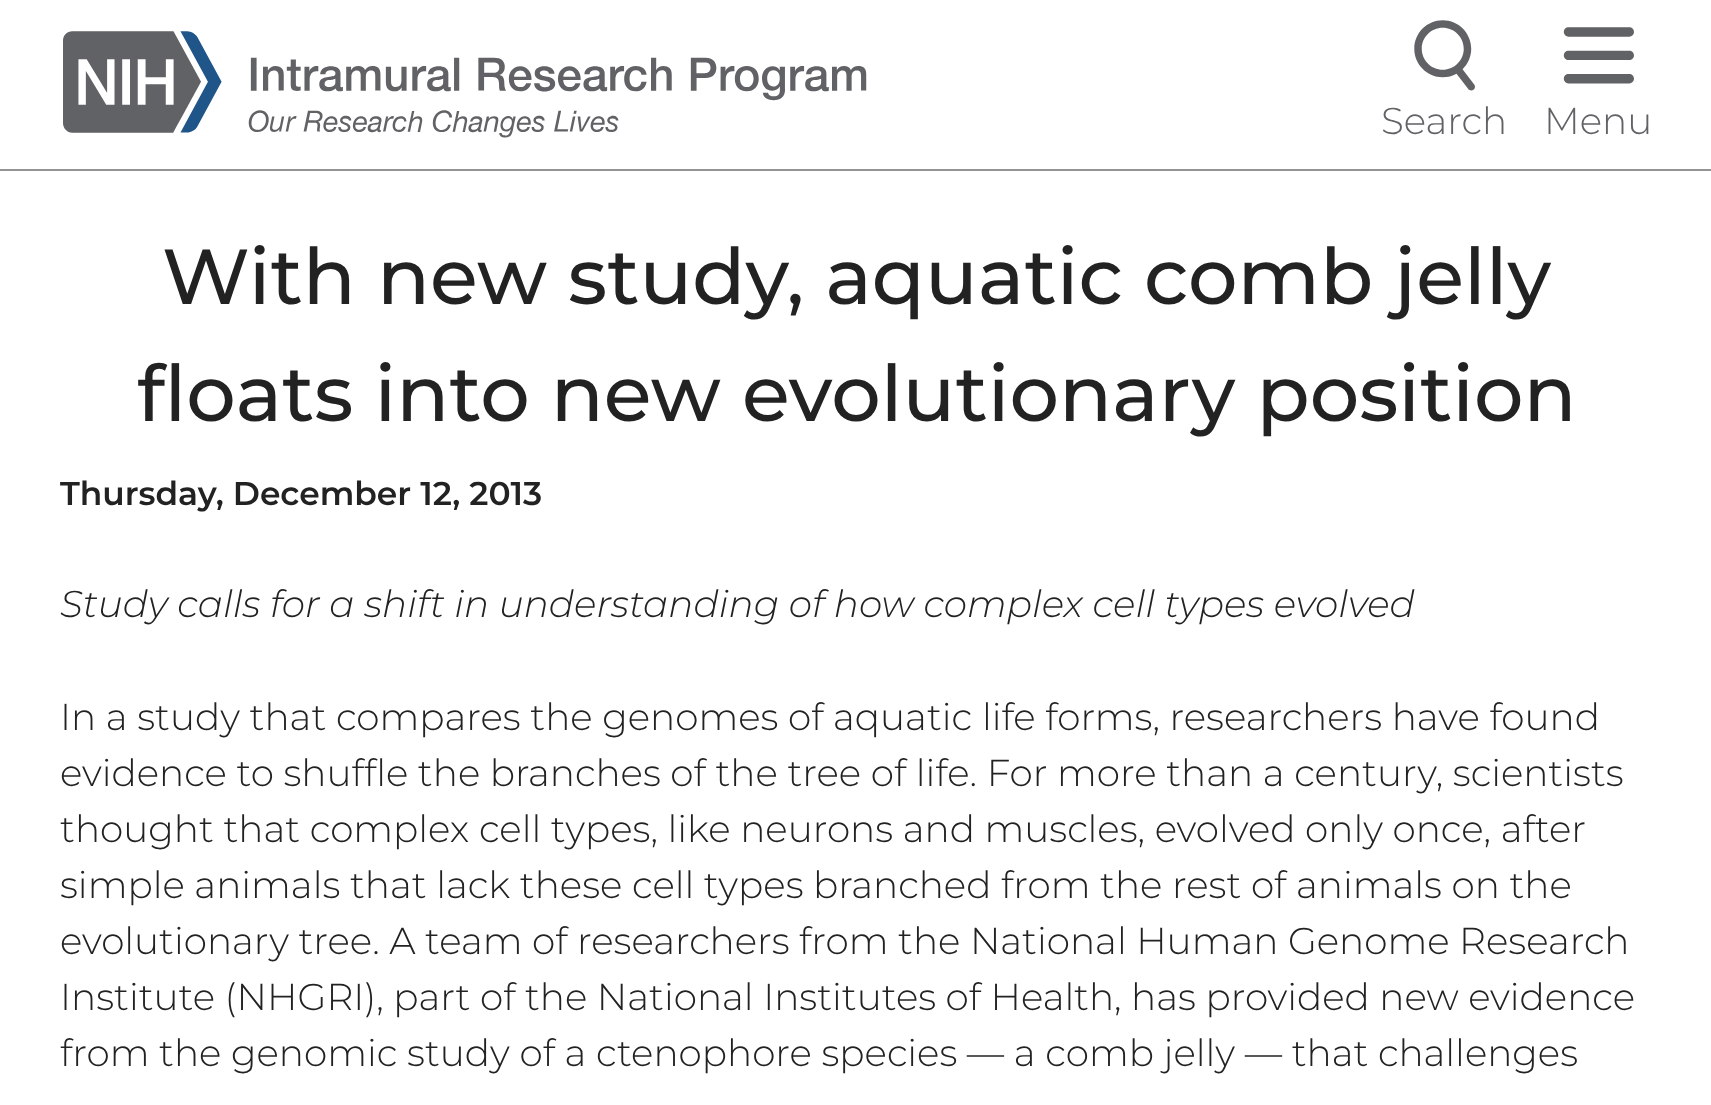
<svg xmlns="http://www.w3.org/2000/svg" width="1711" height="1105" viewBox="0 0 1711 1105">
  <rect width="100%" height="100%" fill="rgb(255,255,255)"/>
  <rect x="0" y="169" width="1711" height="2" fill="rgb(147,147,147)"/>
  <image x="63" y="31" width="804" height="107" href="pic1.png"/>
  <image x="1414" y="20" width="61" height="71" href="pic2.png"/>
  <text x="1381" y="134" font-family="Montserrat" font-size="37.4" font-weight="300" fill="rgb(97,98,101)">Search</text>
  <image x="1563" y="27" width="71" height="57" href="pic3.png"/>
  <text x="1544" y="134" font-family="Montserrat" font-size="37.4" font-weight="300" fill="rgb(97,98,101)">Menu</text>
  <g font-family="Montserrat" font-size="78" font-weight="500" fill="rgb(34,34,34)">
    <text x="162" y="304">With new study, aquatic comb jelly</text>
    <text x="137" y="421">floats into new evolutionary position</text>
  </g>
  <text x="60" y="505" font-family="Montserrat" font-size="32.9" font-weight="600" fill="rgb(34,34,34)">Thursday, December 12, 2013</text>
  <text x="60" y="617" font-family="Montserrat" font-size="37.4" font-weight="300" font-style="italic" fill="rgb(34,34,34)">Study calls for a shift in understanding of how complex cell types evolved</text>
  <g font-family="Montserrat" font-size="37.4" font-weight="300" fill="rgb(34,34,34)">
    <text>
      <tspan x="60" y="730">In a study that compares the genomes of aquatic life forms, researchers have found</tspan>
      <tspan x="60" y="786">evidence to shuffle the branches of the tree of life. For more than a century, scientists</tspan>
      <tspan x="60" y="842">thought that complex cell types, like neurons and muscles, evolved only once, after</tspan>
      <tspan x="60" y="898">simple animals that lack these cell types branched from the rest of animals on the</tspan>
      <tspan x="60" y="954" word-spacing="-0.1">evolutionary tree. A team of researchers from the National Human Genome Research</tspan>
      <tspan x="60" y="1010" word-spacing="-0.1">Institute (NHGRI), part of the National Institutes of Health, has provided new evidence</tspan>
      <tspan x="60" y="1066">from the genomic study of a ctenophore species — a comb jelly — that challenges</tspan>
    </text>
  </g>
</svg>
